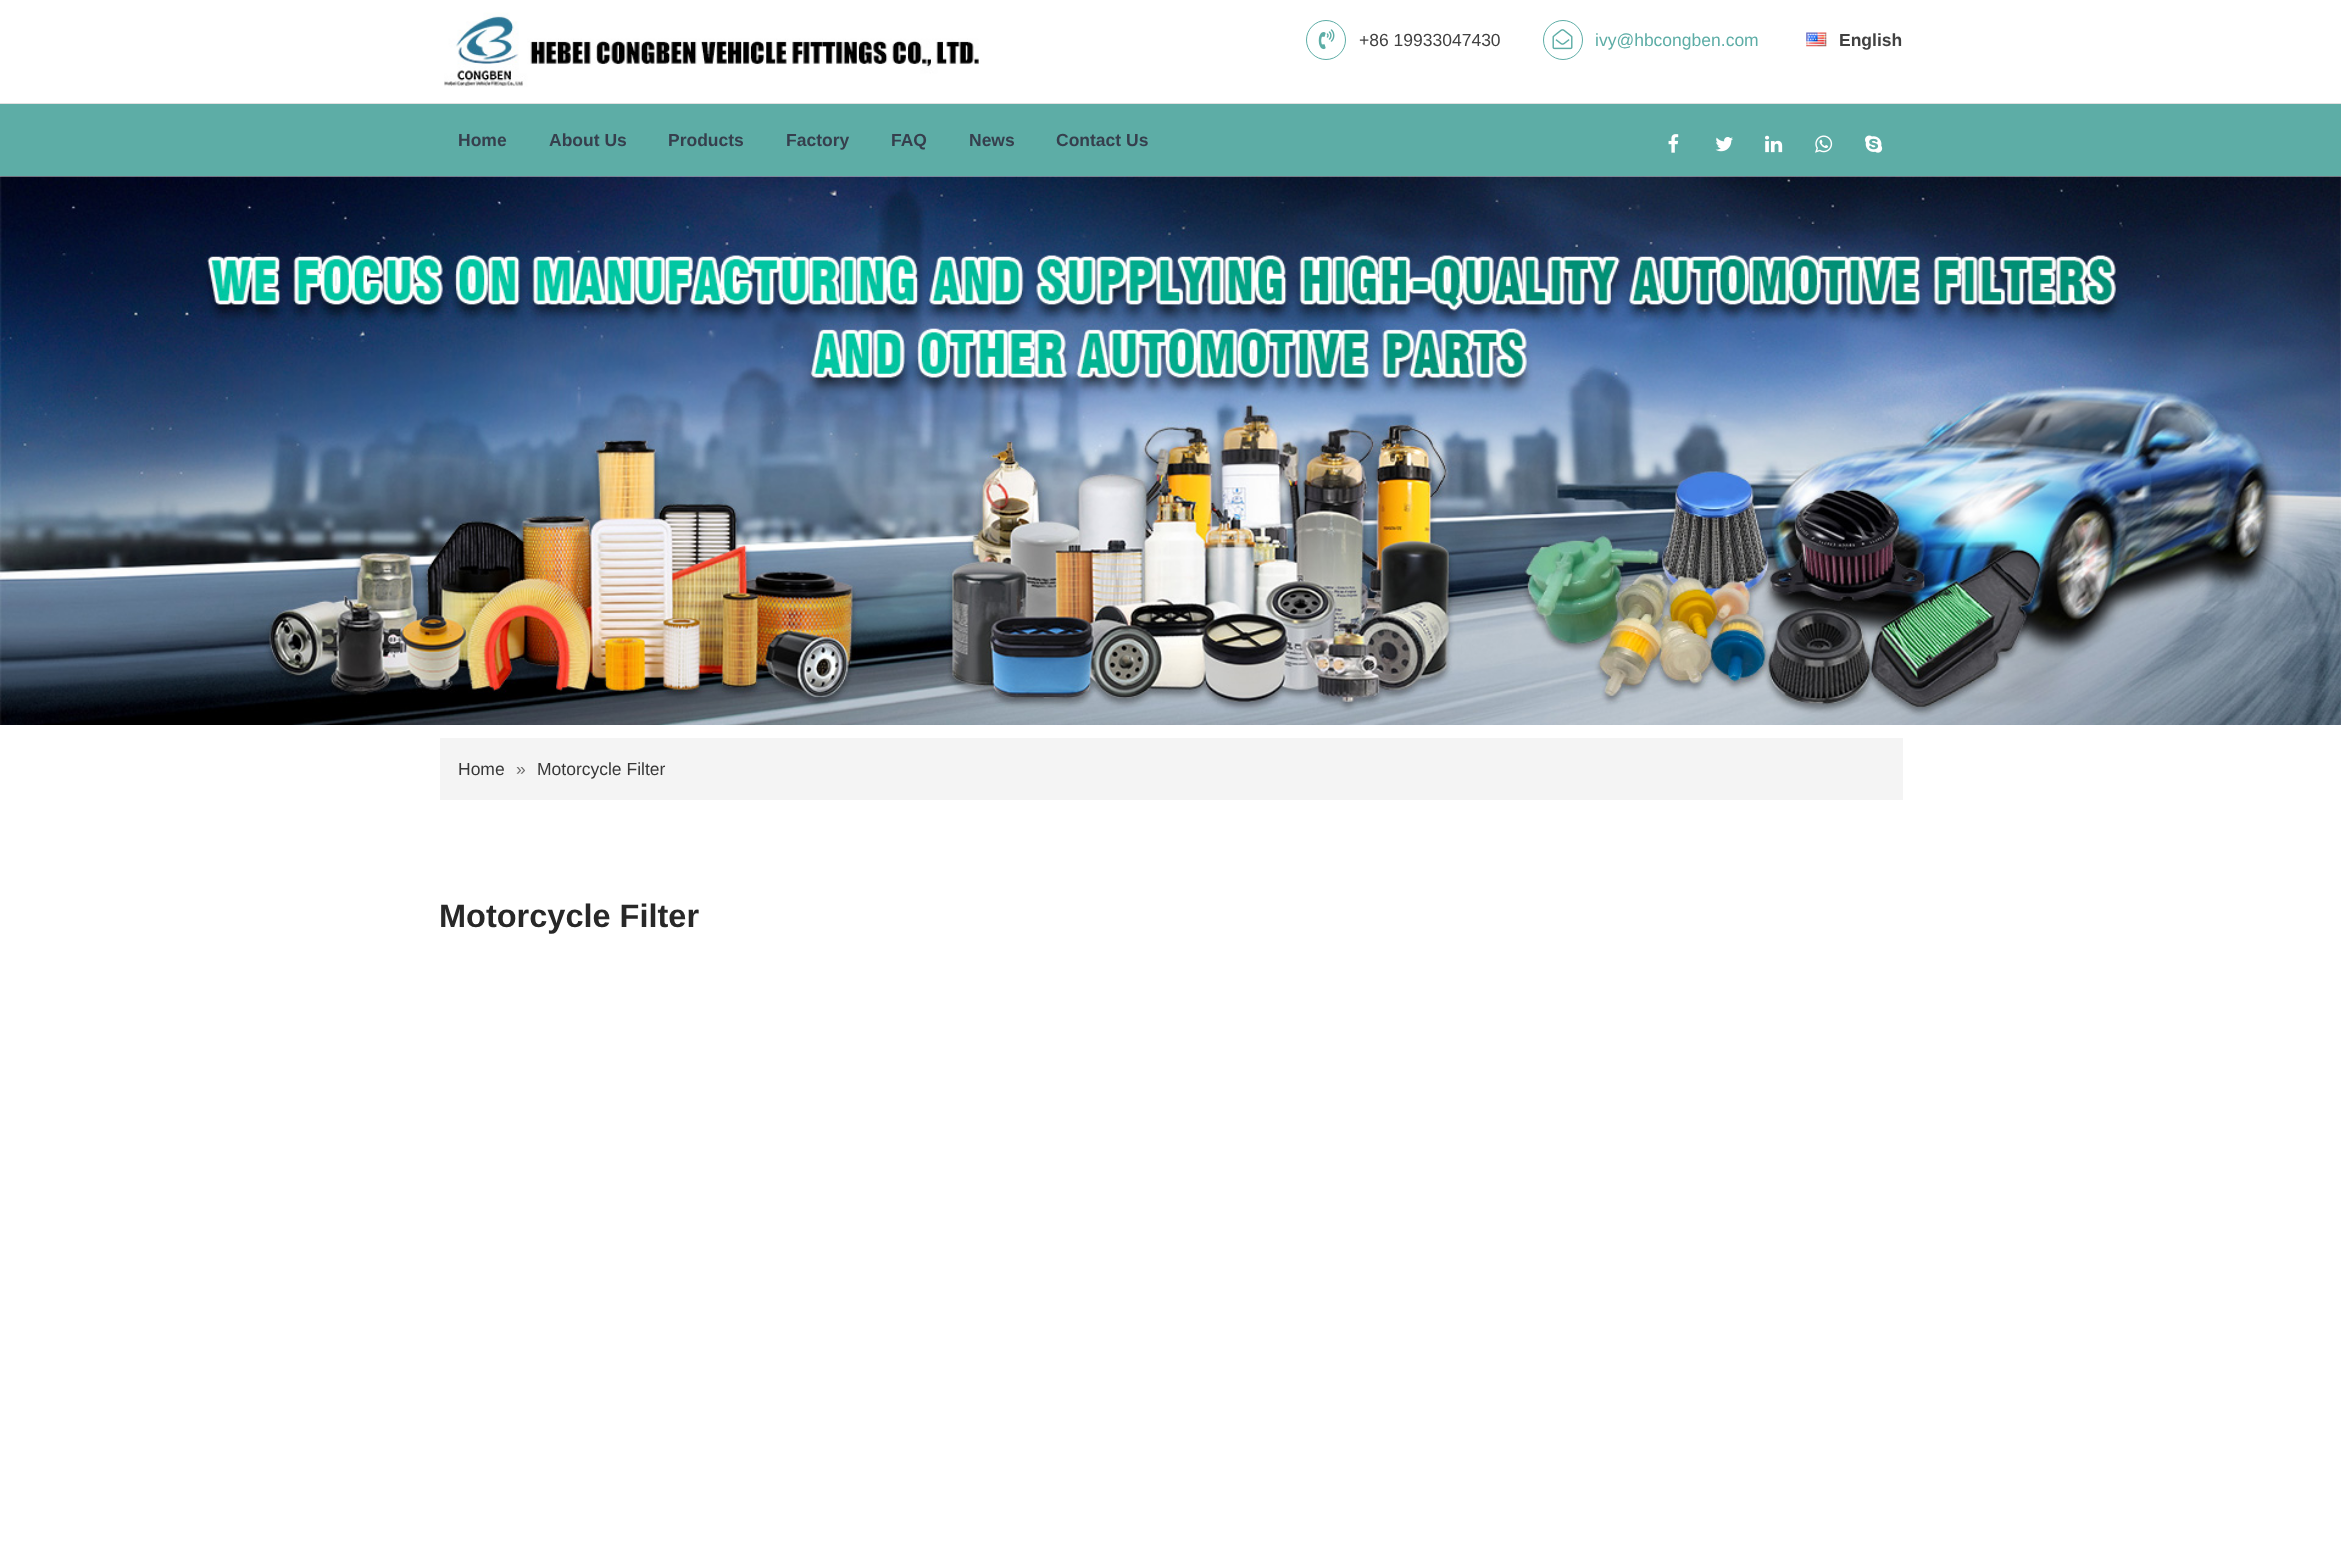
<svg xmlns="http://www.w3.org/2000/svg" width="2341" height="1563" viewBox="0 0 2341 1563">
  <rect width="100%" height="100%" fill="rgb(255,255,255)"/>
  <rect x="0" y="103" width="2341" height="1" fill="rgb(225,225,225)"/>
  <image x="444" y="12" width="535" height="75" href="pic1.png"/>
  <circle cx="1326" cy="40" r="19.5" fill="none" stroke="rgb(93,173,166)"/>
  <image x="1318" y="29" width="17" height="21" href="pic2.png"/>
  <text x="1359" y="46" font-family="Liberation Sans" font-size="17.5" fill="rgb(65,65,65)">+86 19933047430</text>
  <circle cx="1563" cy="40" r="19.5" fill="none" stroke="rgb(93,173,166)"/>
  <image x="1552" y="29" width="21" height="21" href="pic3.png"/>
  <text x="1595" y="46" font-family="Liberation Sans" font-size="17.5" fill="rgb(93,173,166)">ivy@hbcongben.com</text>
  <image x="1806" y="32" width="21" height="15" href="pic4.png"/>
  <text x="1839" y="46" font-family="Liberation Sans" font-size="17.5" font-weight="bold" fill="rgb(65,65,65)">English</text>
  <rect x="0" y="104" width="2341" height="72" fill="rgb(93,173,166)"/>
  <g font-family="Liberation Sans" font-size="17.5" font-weight="bold" fill="rgb(54,63,77)">
    <text x="458" y="146">Home</text>
    <text x="549" y="146">About Us</text>
    <text x="668" y="146">Products</text>
    <text x="786" y="146">Factory</text>
    <text x="891" y="146">FAQ</text>
    <text x="969" y="146">News</text>
    <text x="1056" y="146">Contact Us</text>
  </g>
  <image x="1668" y="134" width="11" height="19" href="pic5.png"/>
  <image x="1715" y="137" width="18" height="15" href="pic6.png"/>
  <image x="1765" y="135" width="18" height="18" href="pic7.png"/>
  <image x="1815" y="135" width="18" height="18" href="pic8.png"/>
  <image x="1865" y="135" width="18" height="18" href="pic9.png"/>
  <image x="0" y="176" width="2341" height="549" href="pic10.png"/>
  <rect x="440" y="738" width="1463" height="62" fill="rgb(244,244,244)"/>
  <text x="458" y="775" font-family="Liberation Sans" font-size="17.5" fill="rgb(56,56,56)">Home</text>
  <text x="516" y="775" font-family="Liberation Sans" font-size="17.5" fill="rgb(110,109,109)">»</text>
  <text x="537" y="775" font-family="Liberation Sans" font-size="17.5" fill="rgb(56,56,56)">Motorcycle Filter</text>
  <text x="439" y="927" font-family="Liberation Sans" font-size="32.5" font-weight="bold" fill="rgb(40,40,40)">Motorcycle Filter</text>
</svg>
